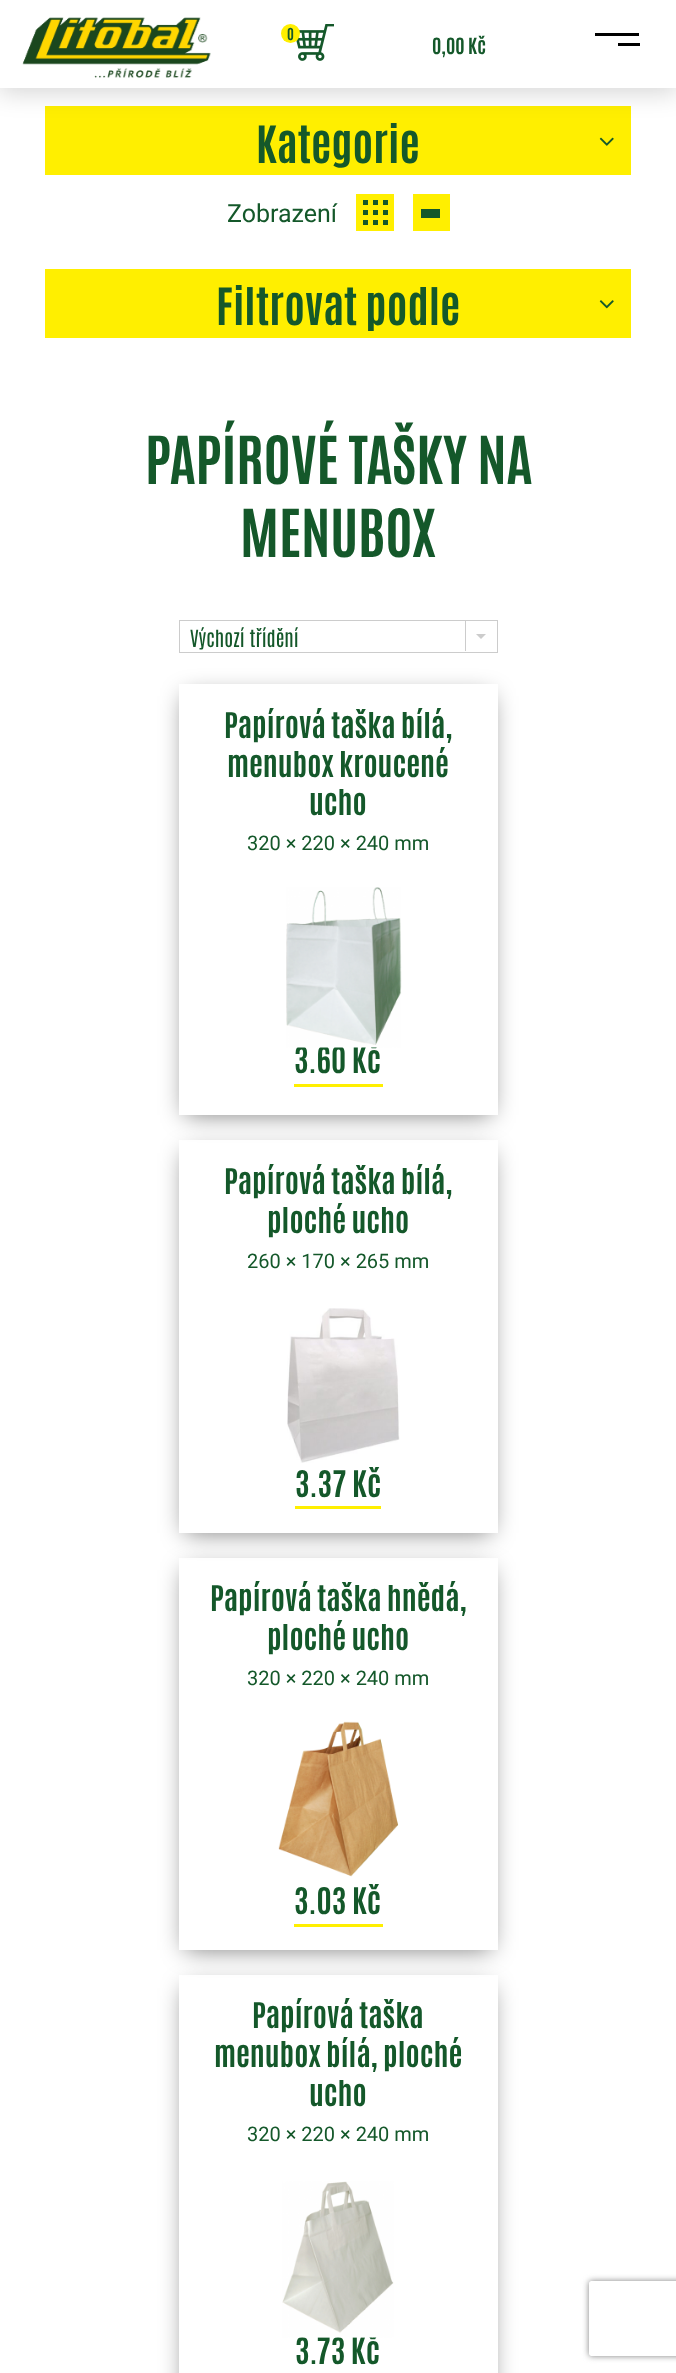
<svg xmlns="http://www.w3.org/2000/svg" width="676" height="2373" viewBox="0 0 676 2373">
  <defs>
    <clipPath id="clip1"><path d="M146 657H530V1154H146ZM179 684H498V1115H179Z" clip-rule="evenodd"/></clipPath>
    <clipPath id="clip2"><path d="M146 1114H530V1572H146ZM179 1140H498V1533H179Z" clip-rule="evenodd"/></clipPath>
    <clipPath id="clip3"><path d="M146 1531H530V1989H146ZM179 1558H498V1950H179Z" clip-rule="evenodd"/></clipPath>
    <clipPath id="clip4"><path d="M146 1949H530V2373H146ZM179 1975H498V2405H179Z" clip-rule="evenodd"/></clipPath>
    <clipPath id="clip5"><path d="M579 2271H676V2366H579ZM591.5 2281H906.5C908 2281 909 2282 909 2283.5V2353.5C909 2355 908 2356 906.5 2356H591.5C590 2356 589 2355 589 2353.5V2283.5C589 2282 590 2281 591.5 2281Z" clip-rule="evenodd"/></clipPath>
  </defs>
  <rect width="100%" height="100%" fill="rgb(255,255,255)"/>
  <rect x="45" y="106" width="586" height="69" fill="rgb(255,239,0)"/>
  <rect x="-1" y="3" width="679" height="90" fill="rgba(0,0,0,0.16)" filter="blur(12.5px)"/>
  <rect x="0" y="0" width="676" height="88" fill="rgb(255,255,255)"/>
  <image x="22" y="17" width="189" height="61" href="pic1.png"/>
  <image x="296" y="24" width="38" height="37" href="pic2.png"/>
  <circle cx="290.5" cy="33.5" r="9.5" fill="rgb(255,239,0)"/>
  <text x="287" y="40" font-family="Antonio" font-size="14" font-weight="bold" fill="rgb(20,88,42)">0</text>
  <text x="432" y="54" font-family="Antonio" font-size="19" font-weight="bold" fill="rgb(20,88,42)">0,00 Kč</text>
  <rect x="595" y="33" width="44" height="3" fill="rgb(0,0,0)"/>
  <rect x="618" y="43" width="22" height="3" fill="rgb(0,0,0)"/>
  <text x="256" y="163" font-family="Antonio" font-size="43.75" font-weight="bold" fill="rgb(20,88,42)">Kategorie</text>
  <image x="599" y="137" width="15" height="9" href="pic3.png"/>
  <text x="227" y="222" font-family="Roboto" font-size="25" fill="rgb(20,88,42)">Zobrazení</text>
  <rect x="356" y="194" width="38" height="37" fill="rgb(255,239,0)"/>
  <rect x="363" y="200" width="5" height="5" fill="rgb(20,88,42)"/>
  <rect x="373" y="200" width="5" height="5" fill="rgb(20,88,42)"/>
  <rect x="383" y="200" width="5" height="5" fill="rgb(20,88,42)"/>
  <rect x="363" y="210" width="5" height="5" fill="rgb(20,88,42)"/>
  <rect x="373" y="210" width="5" height="5" fill="rgb(20,88,42)"/>
  <rect x="383" y="210" width="5" height="5" fill="rgb(20,88,42)"/>
  <rect x="363" y="220" width="5" height="5" fill="rgb(20,88,42)"/>
  <rect x="373" y="220" width="5" height="5" fill="rgb(20,88,42)"/>
  <rect x="383" y="220" width="5" height="5" fill="rgb(20,88,42)"/>
  <rect x="413" y="194" width="37" height="37" fill="rgb(255,239,0)"/>
  <rect x="421" y="209" width="19" height="9" fill="rgb(20,88,42)"/>
  <rect x="45" y="269" width="586" height="69" fill="rgb(255,239,0)"/>
  <text x="216" y="325" font-family="Antonio" font-size="43.75" font-weight="bold" fill="rgb(20,88,42)">Filtrovat podle</text>
  <image x="599" y="300" width="15" height="9" href="pic4.png"/>
  <g font-family="Antonio" font-size="56.25" font-weight="bold" fill="rgb(20,88,42)">
    <text x="145" y="484">PAPÍROVÉ TAŠKY NA</text>
    <text x="240" y="557">MENUBOX</text>
  </g>
  <rect x="179.5" y="620.5" width="318" height="32" fill="none" stroke="rgb(204,204,204)"/>
  <text x="190" y="647" font-family="Antonio" font-size="20" fill="rgb(20,88,42)">Výchozí třídění</text>
  <rect x="465" y="621" width="1" height="30" fill="rgb(204,204,204)"/>
  <path d="M476 634H486L481 639Z" fill="rgb(204,204,204)"/>
  <g clip-path="url(#clip1)">
    <rect x="185" y="696" width="306" height="419" fill="rgba(0,0,0,0.5)" filter="blur(12.5px)"/>
  </g>
  <g font-family="Antonio" font-size="30" font-weight="bold" fill="rgb(20,88,42)">
    <text x="224" y="738">Papírová taška bílá,</text>
    <text x="227" y="777">menubox kroucené</text>
    <text x="309" y="815">ucho</text>
  </g>
  <text x="247" y="850" font-family="Roboto" font-size="20" fill="rgb(20,88,42)">320 × 220 × 240 mm</text>
  <text x="294" y="1073" font-family="Antonio" font-size="31" font-weight="bold" fill="rgb(20,88,42)">3.60 Kč</text>
  <image x="286" y="887" width="116" height="161" href="pic5.png"/>
  <rect x="294" y="1084" width="89" height="3" fill="rgb(255,239,0)"/>
  <g clip-path="url(#clip2)">
    <rect x="185" y="1153" width="306" height="380" fill="rgba(0,0,0,0.5)" filter="blur(12.5px)"/>
  </g>
  <g font-family="Antonio" font-size="30" font-weight="bold" fill="rgb(20,88,42)">
    <text x="224" y="1194">Papírová taška bílá,</text>
    <text x="267" y="1233">ploché ucho</text>
  </g>
  <text x="247" y="1268" font-family="Roboto" font-size="20" fill="rgb(20,88,42)">260 × 170 × 265 mm</text>
  <image x="287" y="1308" width="113" height="155" href="pic6.png"/>
  <rect x="295" y="1506" width="86" height="3" fill="rgb(255,239,0)"/>
  <text x="295" y="1497" font-family="Antonio" font-size="31" font-weight="bold" fill="rgb(20,88,42)">3.37 Kč</text>
  <g clip-path="url(#clip3)">
    <rect x="185" y="1570" width="306" height="380" fill="rgba(0,0,0,0.5)" filter="blur(12.5px)"/>
  </g>
  <g font-family="Antonio" font-size="30" font-weight="bold" fill="rgb(20,88,42)">
    <text x="210" y="1611">Papírová taška hnědá,</text>
    <text x="267" y="1650">ploché ucho</text>
  </g>
  <text x="247" y="1685" font-family="Roboto" font-size="20" fill="rgb(20,88,42)">320 × 220 × 240 mm</text>
  <image x="278" y="1721" width="121" height="156" href="pic7.png"/>
  <rect x="294" y="1924" width="89" height="3" fill="rgb(255,239,0)"/>
  <text x="294" y="1914" font-family="Antonio" font-size="31" font-weight="bold" fill="rgb(20,88,42)">3.03 Kč</text>
  <g clip-path="url(#clip4)">
    <rect x="185" y="1988" width="306" height="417" fill="rgba(0,0,0,0.5)" filter="blur(12.5px)"/>
  </g>
  <g font-family="Antonio" font-size="30" font-weight="bold" fill="rgb(20,88,42)">
    <text x="252" y="2028">Papírová taška</text>
    <text x="214" y="2067">menubox bílá, ploché</text>
    <text x="309" y="2106">ucho</text>
  </g>
  <text x="247" y="2141" font-family="Roboto" font-size="20" fill="rgb(20,88,42)">320 × 220 × 240 mm</text>
  <text x="295" y="2364" font-family="Antonio" font-size="31" font-weight="bold" fill="rgb(20,88,42)">3.73 Kč</text>
  <image x="282" y="2181" width="112" height="157" href="pic8.png"/>
  <g clip-path="url(#clip5)">
    <rect x="589" y="2281" width="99" height="75" rx="2.5" fill="rgb(128,128,128)" filter="blur(3px)"/>
  </g>
</svg>
